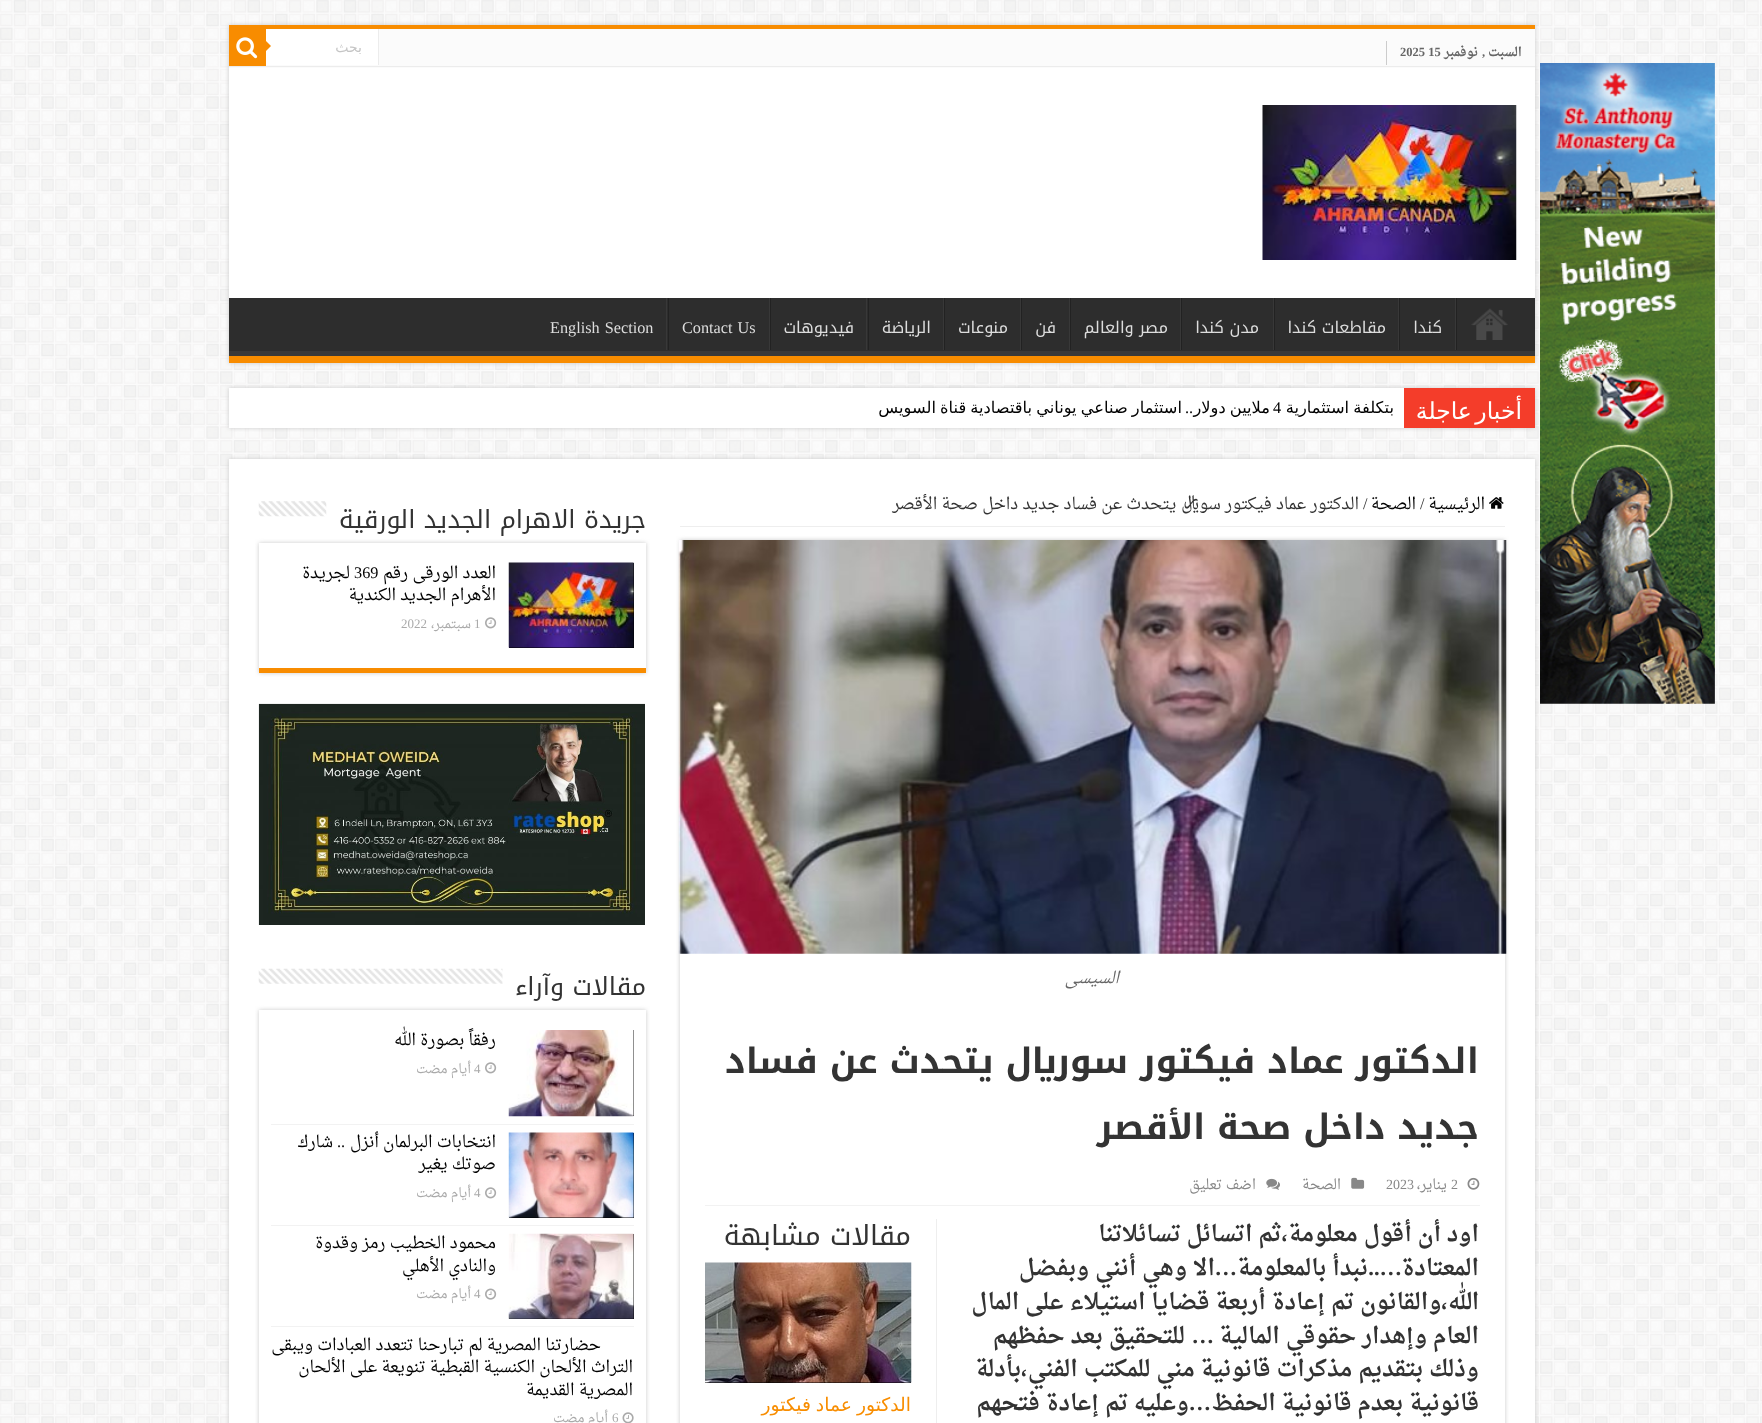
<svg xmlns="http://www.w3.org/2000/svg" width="1762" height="1423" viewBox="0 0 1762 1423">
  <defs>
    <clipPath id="clip1"><rect x="229" y="298" width="1306" height="58"/></clipPath>
    <clipPath id="clip2"><path d="M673 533H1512V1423H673ZM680 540H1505V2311H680Z" clip-rule="evenodd"/></clipPath>
    <clipPath id="clip3"><path d="M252 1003H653V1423H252ZM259 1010H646V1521H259Z" clip-rule="evenodd"/></clipPath>
  </defs>
  <rect width="100%" height="100%" fill="rgb(255,255,255)"/>
  <image x="0" y="0" width="1762" height="1423" href="pic1.png"/>
  <rect x="229" y="25" width="1306" height="338" fill="rgb(202,202,202)" filter="blur(2px)"/>
  <rect x="229" y="388" width="1306" height="40" fill="rgb(202,202,202)" filter="blur(2px)"/>
  <rect x="229" y="459" width="1306" height="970" fill="rgb(202,202,202)" filter="blur(2px)"/>
  <image x="1540" y="63" width="175" height="641" href="pic2.png"/>
  <rect x="229" y="68" width="1306" height="230" fill="rgb(255,255,255)"/>
  <rect x="229" y="25" width="1306" height="4" fill="rgb(248,140,0)"/>
  <rect x="229" y="29" width="1306" height="39" fill="rgb(251,251,251)"/>
  <rect x="229" y="66" width="1306" height="1" fill="rgb(236,236,236)"/>
  <rect x="1386" y="41" width="1" height="24" fill="rgb(204,204,204)"/>
  <text x="1522" y="56" font-family="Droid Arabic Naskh" font-size="12.5" font-weight="bold" direction="rtl" fill="rgb(102,102,102)">السبت</text>
  <text x="1485" y="56" font-family="Liberation Serif" font-size="12.5" font-weight="bold" direction="rtl" fill="rgb(102,102,102)">,</text>
  <text x="1478" y="56" font-family="Droid Arabic Naskh" font-size="12.5" font-weight="bold" direction="rtl" fill="rgb(102,102,102)">نوفمبر</text>
  <text x="1400" y="56" font-family="Liberation Serif" font-size="12.5" font-weight="bold" fill="rgb(102,102,102)">2025 15</text>
  <rect x="266" y="29" width="112" height="36" fill="rgb(255,255,255)"/>
  <rect x="378" y="29" width="1" height="36" fill="rgb(236,236,236)"/>
  <text x="362" y="52" font-family="DejaVu Sans" font-size="14" direction="rtl" fill="rgb(197,197,197)">بحث</text>
  <rect x="229" y="29" width="37" height="37" fill="rgb(248,140,0)"/>
  <image x="236" y="37" width="22" height="22" href="pic3.png"/>
  <path d="M266 51V41L271 46Z" fill="rgb(248,140,0)"/>
  <image x="1262" y="105" width="255" height="155" href="pic4.png"/>
  <rect x="229" y="298" width="1306" height="53" fill="rgb(45,45,45)"/>
  <g clip-path="url(#clip1)">
    <path d="M105 174H1659V480H105ZM228 290H1534C1534 290 1535 291 1535 291V350C1535 351 1534 351 1534 351H228C227 351 226 351 226 350V291C226 291 227 290 228 290Z" fill="rgb(57,57,57)" fill-rule="evenodd"/>
  </g>
  <rect x="229" y="356" width="1306" height="7" fill="rgb(248,140,0)"/>
  <image x="1471" y="308" width="37" height="32" href="pic5.png"/>
  <rect x="1456" y="298" width="1" height="52" fill="rgb(34,34,34)"/>
  <rect x="1455" y="298" width="1" height="52" fill="rgb(56,56,56)"/>
  <text x="1442" y="333" font-family="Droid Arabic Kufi" font-size="16.25" direction="rtl" fill="rgb(221,221,221)">كندا</text>
  <rect x="1399" y="298" width="1" height="52" fill="rgb(34,34,34)"/>
  <rect x="1398" y="298" width="1" height="52" fill="rgb(56,56,56)"/>
  <text x="1386" y="333" font-family="Droid Arabic Kufi" font-size="16.25" direction="rtl" fill="rgb(221,221,221)">مقاطعات كندا</text>
  <rect x="1274" y="298" width="1" height="52" fill="rgb(34,34,34)"/>
  <rect x="1273" y="298" width="1" height="52" fill="rgb(56,56,56)"/>
  <text x="1259" y="333" font-family="Droid Arabic Kufi" font-size="16.25" direction="rtl" fill="rgb(221,221,221)">مدن كندا</text>
  <rect x="1181" y="298" width="1" height="52" fill="rgb(34,34,34)"/>
  <rect x="1180" y="298" width="1" height="52" fill="rgb(56,56,56)"/>
  <text x="1168" y="333" font-family="Droid Arabic Kufi" font-size="16.25" direction="rtl" fill="rgb(221,221,221)">مصر والعالم</text>
  <rect x="1070" y="298" width="1" height="52" fill="rgb(34,34,34)"/>
  <rect x="1069" y="298" width="1" height="52" fill="rgb(56,56,56)"/>
  <text x="1056" y="333" font-family="Droid Arabic Kufi" font-size="16.25" direction="rtl" fill="rgb(221,221,221)">فن</text>
  <rect x="1021" y="298" width="1" height="52" fill="rgb(34,34,34)"/>
  <rect x="1020" y="298" width="1" height="52" fill="rgb(56,56,56)"/>
  <text x="1008" y="333" font-family="Droid Arabic Kufi" font-size="16.25" direction="rtl" fill="rgb(221,221,221)">منوعات</text>
  <rect x="944" y="298" width="1" height="52" fill="rgb(34,34,34)"/>
  <rect x="943" y="298" width="1" height="52" fill="rgb(56,56,56)"/>
  <text x="931" y="333" font-family="Droid Arabic Kufi" font-size="16.25" direction="rtl" fill="rgb(221,221,221)">الرياضة</text>
  <rect x="868" y="298" width="1" height="52" fill="rgb(34,34,34)"/>
  <rect x="866" y="298" width="1" height="52" fill="rgb(56,56,56)"/>
  <text x="854" y="333" font-family="Droid Arabic Kufi" font-size="16.25" direction="rtl" fill="rgb(221,221,221)">فيديوهات</text>
  <rect x="770" y="298" width="1" height="52" fill="rgb(34,34,34)"/>
  <rect x="769" y="298" width="1" height="52" fill="rgb(56,56,56)"/>
  <text x="682" y="333" word-spacing="1" font-family="Liberation Serif" font-size="16.25" fill="rgb(221,221,221)">Contact Us</text>
  <rect x="668" y="298" width="1" height="52" fill="rgb(34,34,34)"/>
  <rect x="666" y="298" width="1" height="52" fill="rgb(56,56,56)"/>
  <text x="550" y="333" word-spacing="1" font-family="Liberation Serif" font-size="16.25" fill="rgb(221,221,221)">English Section</text>
  <rect x="229" y="388" width="1175" height="40" fill="rgb(255,255,255)"/>
  <rect x="1404" y="388" width="131" height="40" fill="rgb(244,61,42)"/>
  <text x="1522" y="419" word-spacing="-4" font-family="DejaVu Sans" font-size="23.5" direction="rtl" fill="rgb(255,255,255)">أخبار عاجلة</text>
  <text x="1394" y="413" word-spacing="-1" font-family="DejaVu Sans" font-size="16.25" direction="rtl" fill="rgb(0,0,0)">بتكلفة استثمارية</text>
  <text x="1273" y="413" font-family="Liberation Serif" font-size="16.25" fill="rgb(0,0,0)">4</text>
  <text x="1193" y="413" font-family="Liberation Serif" font-size="16.25" direction="rtl" fill="rgb(0,0,0)">..</text>
  <g font-family="DejaVu Sans" font-size="16.25" direction="rtl" fill="rgb(0,0,0)">
    <text x="1270" y="413" word-spacing="-1">ملايين دولار</text>
    <text x="1182" y="413" word-spacing="-1">استثمار صناعي يوناني باقتصادية قناة السويس</text>
  </g>
  <rect x="229" y="459" width="1306" height="964" fill="rgb(255,255,255)"/>
  <rect x="680" y="526" width="825" height="1" fill="rgb(238,238,238)"/>
  <image x="1489" y="497" width="15" height="12" href="pic6.png"/>
  <text x="1485" y="509" font-family="Droid Arabic Naskh" font-size="16.25" direction="rtl" fill="rgb(0,0,0)">الرئيسية</text>
  <text x="1420" y="509" font-family="Liberation Serif" font-size="16.25" fill="rgb(51,51,51)">/</text>
  <text x="1416" y="509" font-family="Droid Arabic Naskh" font-size="16.25" direction="rtl" fill="rgb(0,0,0)">الصحة</text>
  <text x="1363" y="509" font-family="Liberation Serif" font-size="16.25" fill="rgb(51,51,51)">/</text>
  <text x="1359" y="509" font-family="Droid Arabic Naskh" font-size="16.25" direction="rtl" fill="rgb(51,51,51)">الدكتور عماد فيكتور سوريال يتحدث عن فساد جديد داخل صحة الأقصر</text>
  <g clip-path="url(#clip2)">
    <rect x="680" y="540" width="825" height="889" fill="rgb(202,202,202)" filter="blur(2px)"/>
  </g>
  <image x="678" y="540" width="829" height="414" href="pic7.png"/>
  <text x="1119" y="983" font-family="Droid Arabic Naskh" font-size="16.25" font-style="italic" direction="rtl" fill="rgb(102,102,102)">السيسى</text>
  <g font-family="Droid Arabic Kufi" font-size="35" font-weight="bold" direction="rtl" fill="rgb(51,51,51)">
    <text>
      <tspan x="1479" y="1073">الدكتور عماد فيكتور سوريال يتحدث عن فساد</tspan>
      <tspan x="1479" y="1139">جديد داخل صحة الأقصر</tspan>
    </text>
  </g>
  <rect x="705" y="1205" width="775" height="1" fill="rgb(242,242,242)"/>
  <image x="1467" y="1177" width="13" height="13" href="pic8.png"/>
  <text x="1451" y="1189" font-family="Liberation Serif" font-size="14" fill="rgb(136,136,136)">2</text>
  <text x="1447" y="1189" font-family="Droid Arabic Naskh" font-size="14" direction="rtl" fill="rgb(136,136,136)">يناير،</text>
  <text x="1386" y="1189" font-family="Liberation Serif" font-size="14" fill="rgb(136,136,136)">2023</text>
  <image x="1351" y="1177" width="14" height="12" href="pic9.png"/>
  <text x="1341" y="1189" font-family="Droid Arabic Naskh" font-size="14" direction="rtl" fill="rgb(136,136,136)">الصحة</text>
  <image x="1266" y="1178" width="14" height="12" href="pic10.png"/>
  <text x="1256" y="1189" font-family="Droid Arabic Naskh" font-size="14" direction="rtl" fill="rgb(136,136,136)">اضف تعليق</text>
  <g font-family="Droid Arabic Naskh" font-size="22.5" font-weight="bold" direction="rtl" fill="rgb(51,51,51)">
    <text>
      <tspan x="1479" y="1241">اود أن أقول معلومة،ثم اتسائل تسائلاتنا</tspan>
      <tspan x="1479" y="1275">المعتادة</tspan>
    </text>
  </g>
  <text x="1402" y="1275" font-family="Liberation Serif" font-size="22.5" font-weight="bold" direction="rtl" fill="rgb(51,51,51)">…..</text>
  <text x="1368" y="1275" font-family="Droid Arabic Naskh" font-size="22.5" font-weight="bold" direction="rtl" fill="rgb(51,51,51)">نبدأ بالمعلومة</text>
  <text x="1237" y="1275" font-family="Liberation Serif" font-size="22.5" font-weight="bold" direction="rtl" fill="rgb(51,51,51)">…</text>
  <g font-family="Droid Arabic Naskh" font-size="22.5" font-weight="bold" direction="rtl" fill="rgb(51,51,51)">
    <text x="1215" y="1275">الا وهي أنني وبفضل</text>
    <text>
      <tspan x="1479" y="1309">الله،والقانون تم إعادة أربعة قضايا استيلاء على المال</tspan>
      <tspan x="1479" y="1343">العام وإهدار حقوقي المالية</tspan>
    </text>
  </g>
  <text x="1214" y="1343" font-family="Liberation Serif" font-size="22.5" font-weight="bold" direction="rtl" fill="rgb(51,51,51)">…</text>
  <g font-family="Droid Arabic Naskh" font-size="22.5" font-weight="bold" direction="rtl" fill="rgb(51,51,51)">
    <text x="1185" y="1343">للتحقيق بعد حفظهم</text>
    <text>
      <tspan x="1479" y="1376">وذلك بتقديم مذكرات قانونية مني للمكتب الفني،بأدلة</tspan>
      <tspan x="1479" y="1410">قانونية بعدم قانونية الحفظ</tspan>
    </text>
  </g>
  <text x="1211" y="1410" font-family="Liberation Serif" font-size="22.5" font-weight="bold" direction="rtl" fill="rgb(51,51,51)">…</text>
  <text x="1189" y="1410" font-family="Droid Arabic Naskh" font-size="22.5" font-weight="bold" direction="rtl" fill="rgb(51,51,51)">وعليه تم إعادة فتحهم</text>
  <rect x="936" y="1219" width="1" height="204" fill="rgb(238,238,238)"/>
  <text x="911" y="1245" font-family="Droid Arabic Kufi" font-size="27.5" direction="rtl" fill="rgb(51,51,51)">مقالات مشابهة</text>
  <rect x="705" y="1382" width="206" height="1" fill="rgb(0,0,0)"/>
  <image x="705" y="1262" width="207" height="121" href="pic11.png"/>
  <text x="911" y="1411" word-spacing="-1" font-family="DejaVu Sans" font-size="18.75" direction="rtl" fill="rgb(248,141,0)">الدكتور عماد فيكتور</text>
  <text x="646" y="528" font-family="Droid Arabic Kufi" font-size="25" direction="rtl" fill="rgb(51,51,51)">جريدة الاهرام الجديد الورقية</text>
  <image x="258" y="501" width="69" height="16" href="pic12.png"/>
  <rect x="259" y="543" width="387" height="130" fill="rgb(202,202,202)" filter="blur(2px)"/>
  <rect x="259" y="543" width="387" height="125" fill="rgb(255,255,255)"/>
  <rect x="259" y="668" width="387" height="5" fill="rgb(248,140,0)"/>
  <rect x="509" y="563" width="125" height="85" fill="rgb(0,0,0)"/>
  <image x="508" y="562" width="126" height="86" href="pic13.png"/>
  <text x="496" y="578" font-family="Droid Arabic Naskh" font-size="16.25" direction="rtl" fill="rgb(0,0,0)">العدد الورقى رقم</text>
  <text x="354" y="578" font-family="Liberation Serif" font-size="16.25" fill="rgb(0,0,0)">369</text>
  <g font-family="Droid Arabic Naskh" font-size="16.25" direction="rtl" fill="rgb(0,0,0)">
    <text x="350" y="578">لجريدة</text>
    <text x="496" y="600">الأهرام الجديد الكندية</text>
  </g>
  <image x="485" y="617" width="12" height="12" href="pic14.png"/>
  <text x="474" y="628" font-family="Liberation Serif" font-size="13" fill="rgb(170,170,170)">1</text>
  <text x="471" y="628" font-family="Droid Arabic Naskh" font-size="13" direction="rtl" fill="rgb(170,170,170)">سبتمبر،</text>
  <text x="401" y="628" font-family="Liberation Serif" font-size="13" fill="rgb(170,170,170)">2022</text>
  <image x="258" y="703" width="387" height="222" href="pic15.png"/>
  <text x="646" y="995" font-family="Droid Arabic Kufi" font-size="25" direction="rtl" fill="rgb(51,51,51)">مقالات وآراء</text>
  <image x="258" y="968" width="245" height="16" href="pic16.png"/>
  <g clip-path="url(#clip3)">
    <rect x="259" y="1010" width="387" height="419" fill="rgb(202,202,202)" filter="blur(2px)"/>
  </g>
  <rect x="271" y="1124" width="363" height="1" fill="rgb(242,242,242)"/>
  <rect x="633" y="1030" width="1" height="86" fill="rgb(0,0,0)"/>
  <image x="508" y="1030" width="126" height="87" href="pic17.png"/>
  <text x="496" y="1045" font-family="Droid Arabic Naskh" font-size="16.25" direction="rtl" fill="rgb(0,0,0)">رفقاً بصورة الله</text>
  <image x="485" y="1062" width="12" height="12" href="pic14.png"/>
  <text x="474" y="1073" font-family="Liberation Serif" font-size="13" fill="rgb(170,170,170)">4</text>
  <text x="471" y="1073" font-family="Droid Arabic Naskh" font-size="13" direction="rtl" fill="rgb(170,170,170)">أيام مضت</text>
  <rect x="271" y="1225" width="363" height="1" fill="rgb(242,242,242)"/>
  <rect x="509" y="1133" width="125" height="85" fill="rgb(0,0,0)"/>
  <image x="508" y="1132" width="126" height="86" href="pic18.png"/>
  <text x="496" y="1147" font-family="Droid Arabic Naskh" font-size="16.25" direction="rtl" fill="rgb(0,0,0)">انتخابات البرلمان أنزل</text>
  <text x="345" y="1147" font-family="Liberation Serif" font-size="16.25" direction="rtl" fill="rgb(0,0,0)">..</text>
  <g font-family="Droid Arabic Naskh" font-size="16.25" direction="rtl" fill="rgb(0,0,0)">
    <text x="333" y="1147">شارك</text>
    <text x="496" y="1169">صوتك يغير</text>
  </g>
  <image x="485" y="1187" width="12" height="12" href="pic14.png"/>
  <text x="474" y="1197" font-family="Liberation Serif" font-size="13" fill="rgb(170,170,170)">4</text>
  <text x="471" y="1197" font-family="Droid Arabic Naskh" font-size="13" direction="rtl" fill="rgb(170,170,170)">أيام مضت</text>
  <rect x="271" y="1326" width="363" height="1" fill="rgb(242,242,242)"/>
  <rect x="509" y="1234" width="125" height="85" fill="rgb(0,0,0)"/>
  <image x="508" y="1233" width="126" height="86" href="pic19.png"/>
  <g font-family="Droid Arabic Naskh" font-size="16.25" direction="rtl" fill="rgb(0,0,0)">
    <text>
      <tspan x="496" y="1248">محمود الخطيب رمز وقدوة</tspan>
      <tspan x="496" y="1271">والنادي الأهلي</tspan>
    </text>
  </g>
  <image x="485" y="1288" width="12" height="12" href="pic20.png"/>
  <text x="474" y="1298" font-family="Liberation Serif" font-size="13" fill="rgb(170,170,170)">4</text>
  <text x="471" y="1298" font-family="Droid Arabic Naskh" font-size="13" direction="rtl" fill="rgb(170,170,170)">أيام مضت</text>
  <g font-family="Droid Arabic Naskh" font-size="16.25" direction="rtl" fill="rgb(0,0,0)">
    <text x="601" y="1350">حضارتنا المصرية لم تبارحنا تتعدد العبادات ويبقى</text>
    <text>
      <tspan x="633" y="1372">التراث الألحان الكنسية القبطية تنويعة على الألحان</tspan>
      <tspan x="633" y="1395">المصرية القديمة</tspan>
    </text>
  </g>
  <image x="622" y="1412" width="12" height="11" href="pic21.png"/>
  <text x="612" y="1422" font-family="Liberation Serif" font-size="13" fill="rgb(170,170,170)">6</text>
  <text x="608" y="1422" font-family="Droid Arabic Naskh" font-size="13" direction="rtl" fill="rgb(170,170,170)">أيام مضت</text>
</svg>
